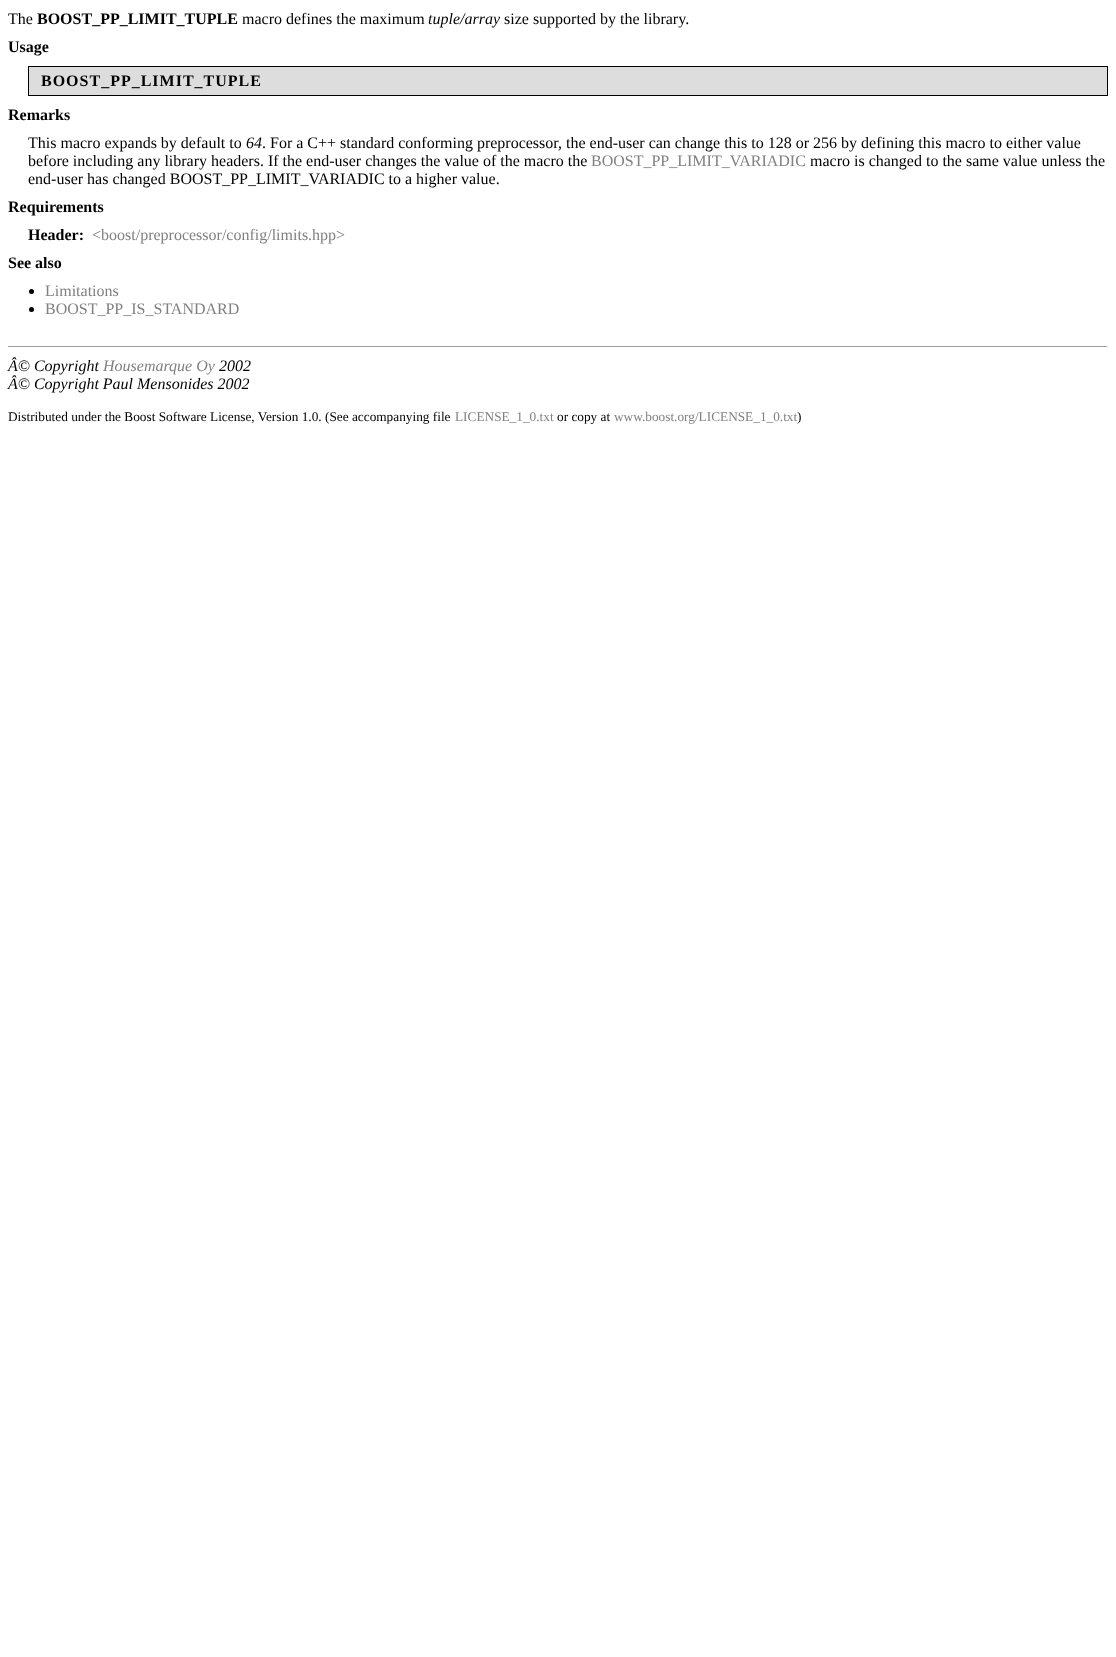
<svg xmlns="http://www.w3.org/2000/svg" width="1116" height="1657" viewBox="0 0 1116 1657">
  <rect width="100%" height="100%" fill="rgb(255,255,255)"/>
  <text x="8" y="24" font-family="Liberation Serif" font-size="16" fill="rgb(0,0,0)">The</text>
  <text x="37" y="24" font-family="Liberation Serif" font-size="16" font-weight="bold" fill="rgb(0,0,0)">BOOST_PP_LIMIT_TUPLE</text>
  <text x="242" y="24" font-family="Liberation Serif" font-size="16" fill="rgb(0,0,0)">macro defines the maximum</text>
  <text x="428" y="24" font-family="Liberation Serif" font-size="16" font-style="italic" fill="rgb(0,0,0)">tuple/array</text>
  <text x="504" y="24" font-family="Liberation Serif" font-size="16" fill="rgb(0,0,0)">size supported by the library.</text>
  <text x="8" y="52" font-family="Liberation Serif" font-size="16" font-weight="bold" fill="rgb(0,0,0)">Usage</text>
  <rect x="28.5" y="66.5" width="1079" height="29" fill="rgb(221,221,221)" stroke="rgb(0,0,0)"/>
  <text x="41" y="86" font-family="Liberation Serif" font-size="16" font-weight="bold" letter-spacing="1" fill="rgb(0,0,0)">BOOST_PP_LIMIT_TUPLE</text>
  <text x="8" y="120" font-family="Liberation Serif" font-size="16" font-weight="bold" fill="rgb(0,0,0)">Remarks</text>
  <text x="28" y="148" font-family="Liberation Serif" font-size="16" fill="rgb(0,0,0)">This macro expands by default to</text>
  <text x="246" y="148" font-family="Liberation Serif" font-size="16" font-style="italic" fill="rgb(0,0,0)">64</text>
  <g font-family="Liberation Serif" font-size="16" fill="rgb(0,0,0)">
    <text x="262" y="148">. For a C++ standard conforming preprocessor, the end-user can change this to 128 or 256 by defining this macro to either value</text>
    <text x="28" y="166">before including any library headers. If the end-user changes the value of the macro the</text>
  </g>
  <text x="591" y="166" font-family="Liberation Serif" font-size="16" fill="rgb(128,128,128)">BOOST_PP_LIMIT_VARIADIC</text>
  <g font-family="Liberation Serif" font-size="16" fill="rgb(0,0,0)">
    <text x="810" y="166">macro is changed to the same value unless the</text>
    <text x="28" y="184">end-user has changed BOOST_PP_LIMIT_VARIADIC to a higher value.</text>
  </g>
  <g font-family="Liberation Serif" font-size="16" font-weight="bold" fill="rgb(0,0,0)">
    <text x="8" y="212">Requirements</text>
    <text x="28" y="240">Header:</text>
  </g>
  <text x="92" y="240" font-family="Liberation Serif" font-size="16" fill="rgb(128,128,128)">&lt;boost/preprocessor/config/limits.hpp&gt;</text>
  <text x="8" y="268" font-family="Liberation Serif" font-size="16" font-weight="bold" fill="rgb(0,0,0)">See also</text>
  <circle cx="31.5" cy="291.5" r="2.5" fill="rgb(0,0,0)"/>
  <text x="45" y="296" font-family="Liberation Serif" font-size="16" fill="rgb(128,128,128)">Limitations</text>
  <circle cx="31.5" cy="309.5" r="2.5" fill="rgb(0,0,0)"/>
  <text x="45" y="314" font-family="Liberation Serif" font-size="16" fill="rgb(128,128,128)">BOOST_PP_IS_STANDARD</text>
  <rect x="8" y="346" width="1100" height="1" fill="rgb(159,159,159)"/>
  <rect x="1107" y="346" width="1" height="1" fill="rgb(238,238,238)"/>
  <text x="8" y="371" font-family="Liberation Serif" font-size="16" font-style="italic" fill="rgb(0,0,0)">Â© Copyright</text>
  <text x="103" y="371" font-family="Liberation Serif" font-size="16" font-style="italic" fill="rgb(128,128,128)">Housemarque Oy</text>
  <g font-family="Liberation Serif" font-size="16" font-style="italic" fill="rgb(0,0,0)">
    <text x="219" y="371">2002</text>
    <text x="8" y="389">Â© Copyright Paul Mensonides 2002</text>
  </g>
  <text x="8" y="421" font-family="Liberation Serif" font-size="13.3" fill="rgb(0,0,0)">Distributed under the Boost Software License, Version 1.0. (See accompanying file</text>
  <text x="455" y="421" font-family="Liberation Serif" font-size="13.3" fill="rgb(128,128,128)">LICENSE_1_0.txt</text>
  <text x="557" y="421" font-family="Liberation Serif" font-size="13.3" fill="rgb(0,0,0)">or copy at</text>
  <text x="614" y="421" font-family="Liberation Serif" font-size="13.3" fill="rgb(128,128,128)">www.boost.org/LICENSE_1_0.txt</text>
  <text x="797" y="421" font-family="Liberation Serif" font-size="13.3" fill="rgb(0,0,0)">)</text>
</svg>
